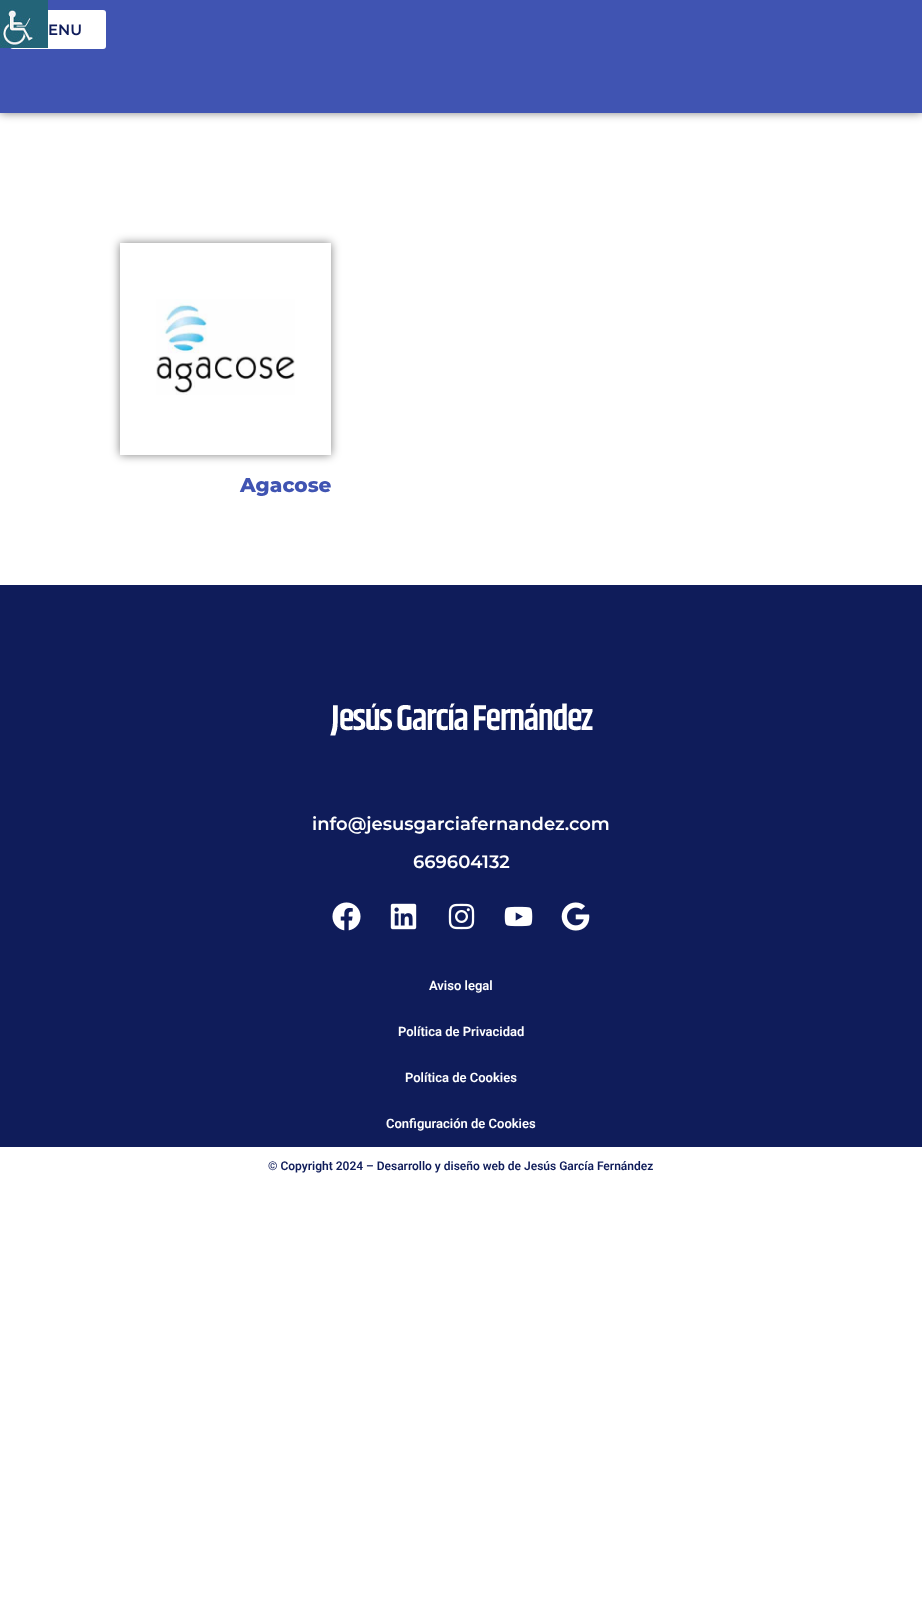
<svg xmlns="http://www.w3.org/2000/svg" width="922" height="1612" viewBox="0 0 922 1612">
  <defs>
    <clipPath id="clip1"><path d="M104 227H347V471H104ZM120 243H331V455H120Z" clip-rule="evenodd"/></clipPath>
  </defs>
  <rect width="100%" height="100%" fill="rgb(255,255,255)"/>
  <rect x="0" y="0" width="922" height="113" fill="rgba(0,0,0,0.5)" filter="blur(5px)"/>
  <rect x="0" y="0" width="922" height="113" fill="rgb(64,84,178)"/>
  <rect x="10" y="10" width="96" height="39" rx="3" fill="rgb(255,255,255)"/>
  <image x="0" y="0" width="48" height="48" href="pic1.png"/>
  <text x="48" y="35" font-family="Montserrat" font-size="15" font-weight="600" fill="rgb(15,28,90)">ENU</text>
  <g clip-path="url(#clip1)">
    <rect x="120" y="243" width="211" height="212" fill="rgba(0,0,0,0.5)" filter="blur(5px)"/>
  </g>
  <image x="156" y="299" width="139" height="96" href="pic2.png"/>
  <text x="240" y="492" font-family="Montserrat" font-size="20" font-weight="800" fill="rgb(64,84,178)">Agacose</text>
  <rect x="0" y="585" width="922" height="562" fill="rgb(15,28,90)"/>
  <image x="330" y="703" width="263" height="33" href="pic3.png"/>
  <g font-family="Montserrat" font-size="18" font-weight="600" fill="rgb(255,255,255)">
    <text x="312" y="830">info@jesusgarciafernandez.com</text>
    <text x="413" y="868">669604132</text>
  </g>
  <image x="332" y="902" width="29" height="29" href="pic4.png"/>
  <image x="390" y="903" width="27" height="27" href="pic5.png"/>
  <image x="448" y="903" width="27" height="27" href="pic6.png"/>
  <image x="504" y="906" width="29" height="21" href="pic7.png"/>
  <image x="561" y="902" width="29" height="29" href="pic8.png"/>
  <g font-family="Roboto" font-size="13" font-weight="600" fill="rgb(255,255,255)">
    <text x="429" y="990">Aviso legal</text>
    <text x="398" y="1036">Política de Privacidad</text>
    <text x="405" y="1082">Política de Cookies</text>
    <text x="386" y="1128">Configuración de Cookies</text>
  </g>
  <text x="268" y="1170" font-family="Roboto" font-size="12" font-weight="600" fill="rgb(15,28,90)">© Copyright 2024 – Desarrollo y diseño web de Jesús García Fernández</text>
</svg>
